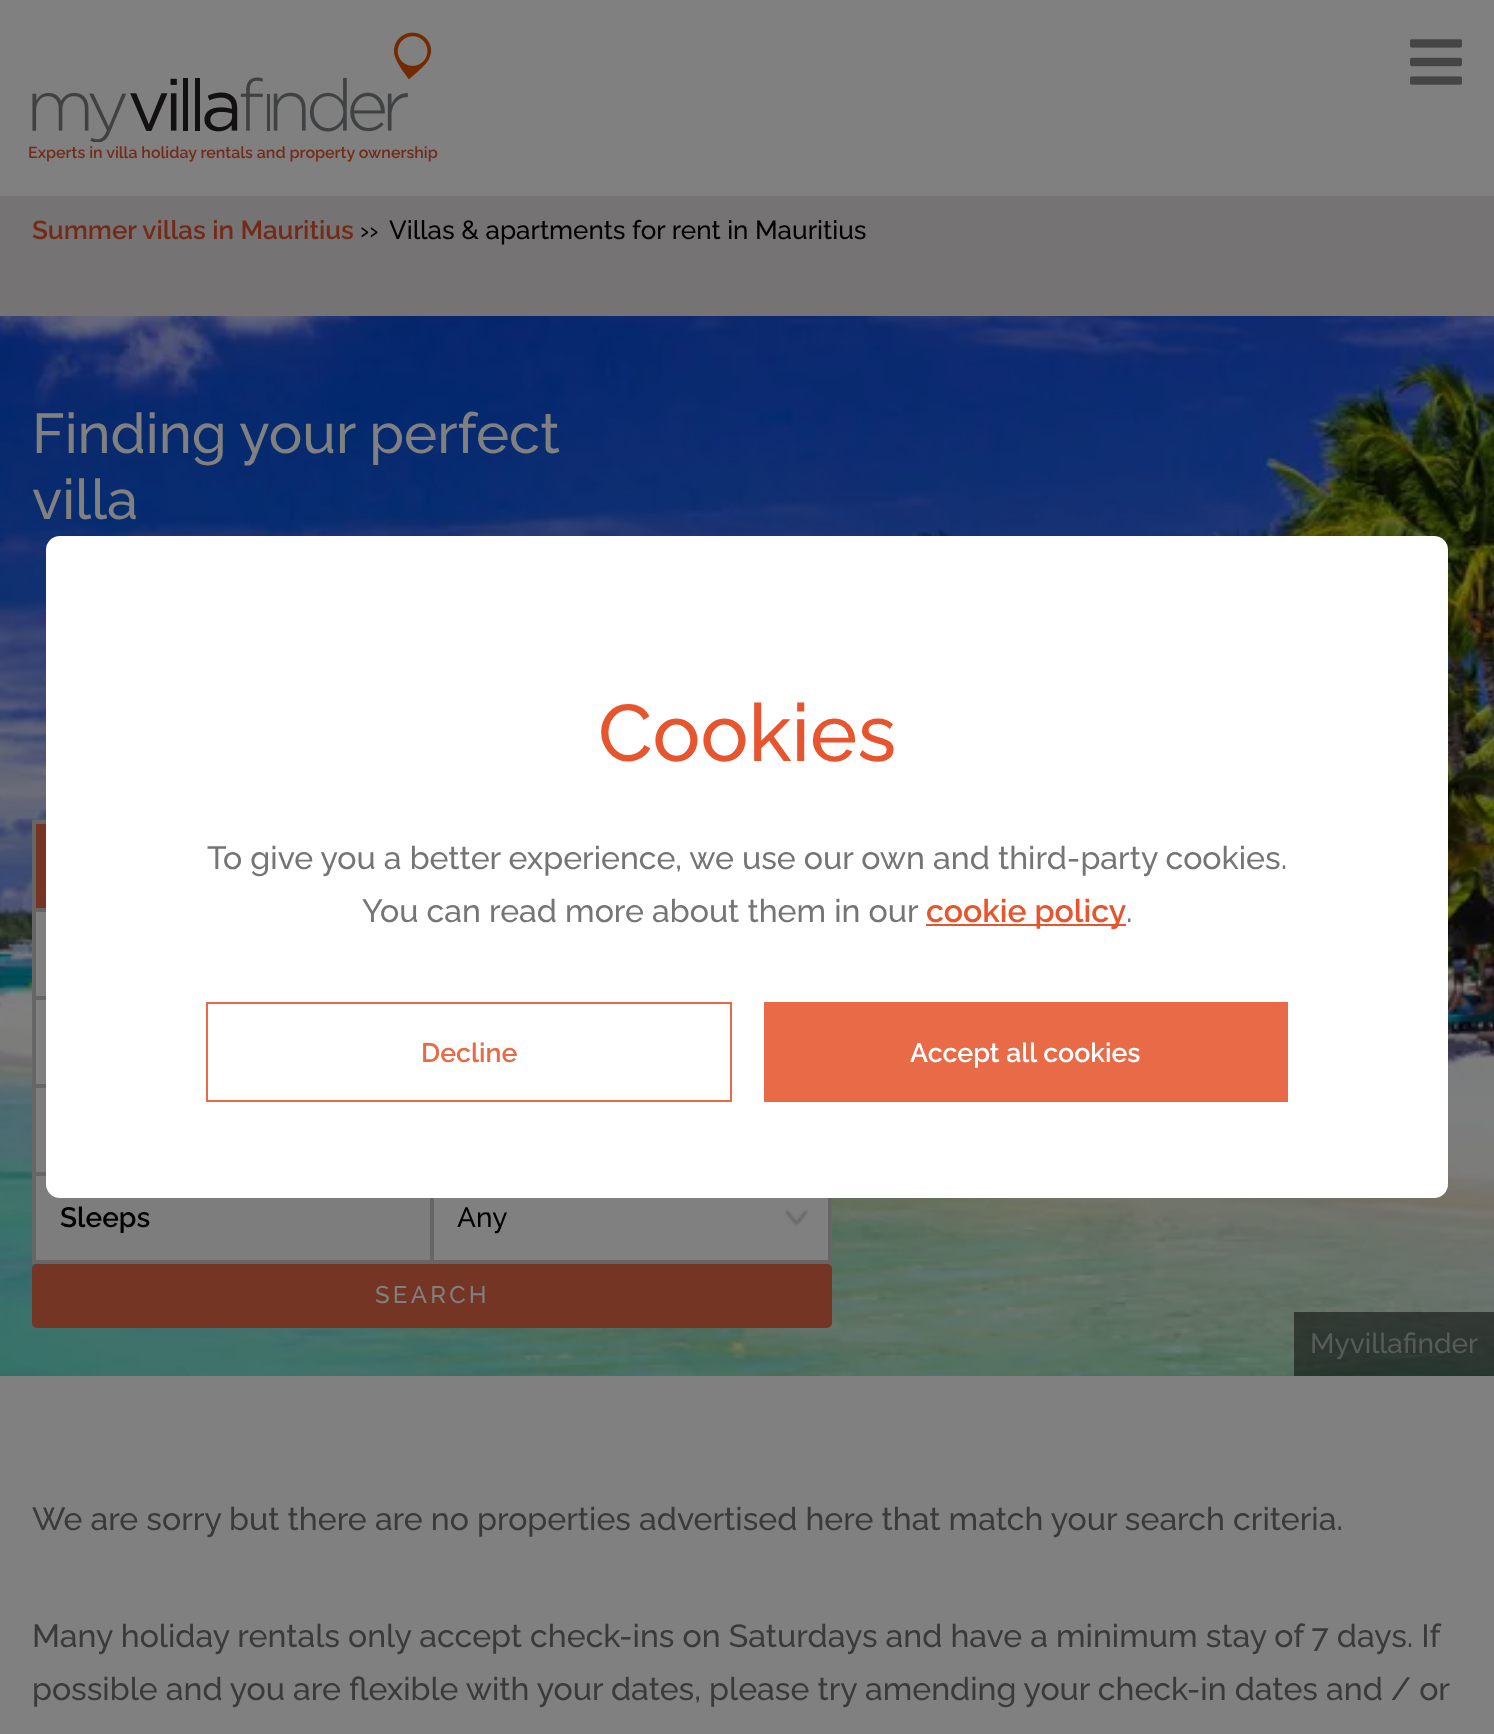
<svg xmlns="http://www.w3.org/2000/svg" width="1494" height="1734" viewBox="0 0 1494 1734">
  <rect width="100%" height="100%" fill="rgb(128,128,128)"/>
  <image x="1410" y="39" width="52" height="46" href="pic1.png"/>
  <image x="32" y="32" width="400" height="110" href="pic2.png"/>
  <text x="28" y="158" font-family="Raleway" font-size="16" font-weight="600" fill="rgb(115,43,23)">Experts in villa holiday rentals and property ownership</text>
  <rect x="0" y="196" width="1494" height="120" fill="rgb(117,115,115)"/>
  <text x="32" y="239" font-family="Raleway" font-size="26" font-weight="600" fill="rgb(115,43,23)">Summer villas in Mauritius</text>
  <g font-family="Raleway" font-size="26" font-weight="500" fill="rgb(0,0,0)">
    <text x="360" y="239">››</text>
    <text x="389" y="239">Villas &amp; apartments for rent in Mauritius</text>
  </g>
  <image x="0" y="316" width="1494" height="1060" href="pic4.png"/>
  <g font-family="Raleway" font-size="56" font-weight="500" fill="rgb(128,128,128)">
    <text>
      <tspan x="32" y="453">Finding your perfect</tspan>
      <tspan x="32" y="519">villa</tspan>
    </text>
  </g>
  <rect x="32" y="820" width="14" height="4" fill="rgb(102,102,102)"/>
  <rect x="32" y="820" width="4" height="88" fill="rgb(102,102,102)"/>
  <rect x="36" y="824" width="10" height="84" fill="rgb(116,53,36)"/>
  <rect x="36" y="912" width="10" height="84" fill="rgb(128,128,128)"/>
  <rect x="32" y="908" width="14" height="4" fill="rgb(102,102,102)"/>
  <rect x="32" y="908" width="4" height="88" fill="rgb(102,102,102)"/>
  <rect x="36" y="1000" width="10" height="84" fill="rgb(128,128,128)"/>
  <rect x="32" y="996" width="14" height="4" fill="rgb(102,102,102)"/>
  <rect x="32" y="996" width="4" height="88" fill="rgb(102,102,102)"/>
  <rect x="32" y="1084" width="14" height="4" fill="rgb(102,102,102)"/>
  <rect x="32" y="1084" width="4" height="88" fill="rgb(102,102,102)"/>
  <rect x="36" y="1088" width="10" height="84" fill="rgb(125,125,125)"/>
  <rect x="434" y="1198" width="394" height="62" fill="rgb(128,128,128)"/>
  <rect x="32" y="1172" width="14" height="4" fill="rgb(102,102,102)"/>
  <rect x="828" y="1198" width="4" height="62" fill="rgb(102,102,102)"/>
  <rect x="32" y="1172" width="4" height="88" fill="rgb(102,102,102)"/>
  <rect x="36" y="1176" width="394" height="84" fill="rgb(125,125,125)"/>
  <rect x="430" y="1198" width="4" height="62" fill="rgb(102,102,102)"/>
  <text x="60" y="1227" font-family="Raleway" font-size="28" font-weight="600" fill="rgb(0,0,0)">Sleeps</text>
  <image x="784" y="1210" width="24" height="16" href="pic3.png"/>
  <text x="457" y="1227" font-family="Raleway" font-size="28" font-weight="500" fill="rgb(0,0,0)">Any</text>
  <rect x="32" y="1260" width="800" height="4" fill="rgb(102,102,102)"/>
  <rect x="33" y="1265" width="798" height="62" rx="4" fill="rgb(116,53,36)" stroke="rgb(116,53,36)" stroke-width="2"/>
  <text x="375" y="1303" font-family="Raleway" font-size="24" font-weight="500" letter-spacing="3.25" fill="rgb(128,128,128)">SEARCH</text>
  <rect x="1294" y="1312" width="200" height="64" fill="rgba(0,0,0,0.5)"/>
  <text x="1310" y="1353" font-family="Raleway" font-size="28" font-weight="500" fill="rgb(87,92,88)">Myvillafinder</text>
  <rect x="46" y="536" width="1402" height="662" rx="14" fill="rgb(255,255,255)"/>
  <text x="598" y="761" font-family="Raleway" font-size="80" font-weight="500" fill="rgb(230,85,46)">Cookies</text>
  <g font-family="Raleway" font-size="32" font-weight="500" fill="rgb(118,116,116)">
    <text x="207" y="869">To give you a better experience, we use our own and third-party cookies.</text>
    <text x="362" y="922">You can read more about them in our</text>
  </g>
  <rect x="926" y="924" width="200" height="2" fill="rgb(230,85,46)"/>
  <text x="926" y="922" font-family="Raleway" font-size="32" font-weight="600" fill="rgb(230,85,46)">cookie policy</text>
  <text x="1126" y="922" font-family="Raleway" font-size="32" font-weight="500" fill="rgb(118,116,116)">.</text>
  <rect x="207" y="1003" width="524" height="98" fill="none" stroke="rgb(232,106,71)" stroke-width="2"/>
  <text x="421" y="1062" font-family="Raleway" font-size="26.75" font-weight="600" fill="rgb(232,106,71)">Decline</text>
  <rect x="764" y="1002" width="524" height="100" fill="rgb(232,106,71)"/>
  <text x="910" y="1062" font-family="Raleway" font-size="26.75" font-weight="600" fill="rgb(255,255,255)">Accept all cookies</text>
  <g font-family="Raleway" font-size="32" font-weight="500" fill="rgb(59,58,58)">
    <text x="32" y="1530">We are sorry but there are no properties advertised here that match your search criteria.</text>
    <text>
      <tspan x="32" y="1647">Many holiday rentals only accept check-ins on Saturdays and have a minimum stay of 7 days. If</tspan>
      <tspan x="32" y="1700">possible and you are flexible with your dates, please try amending your check-in dates and / or</tspan>
    </text>
  </g>
</svg>
